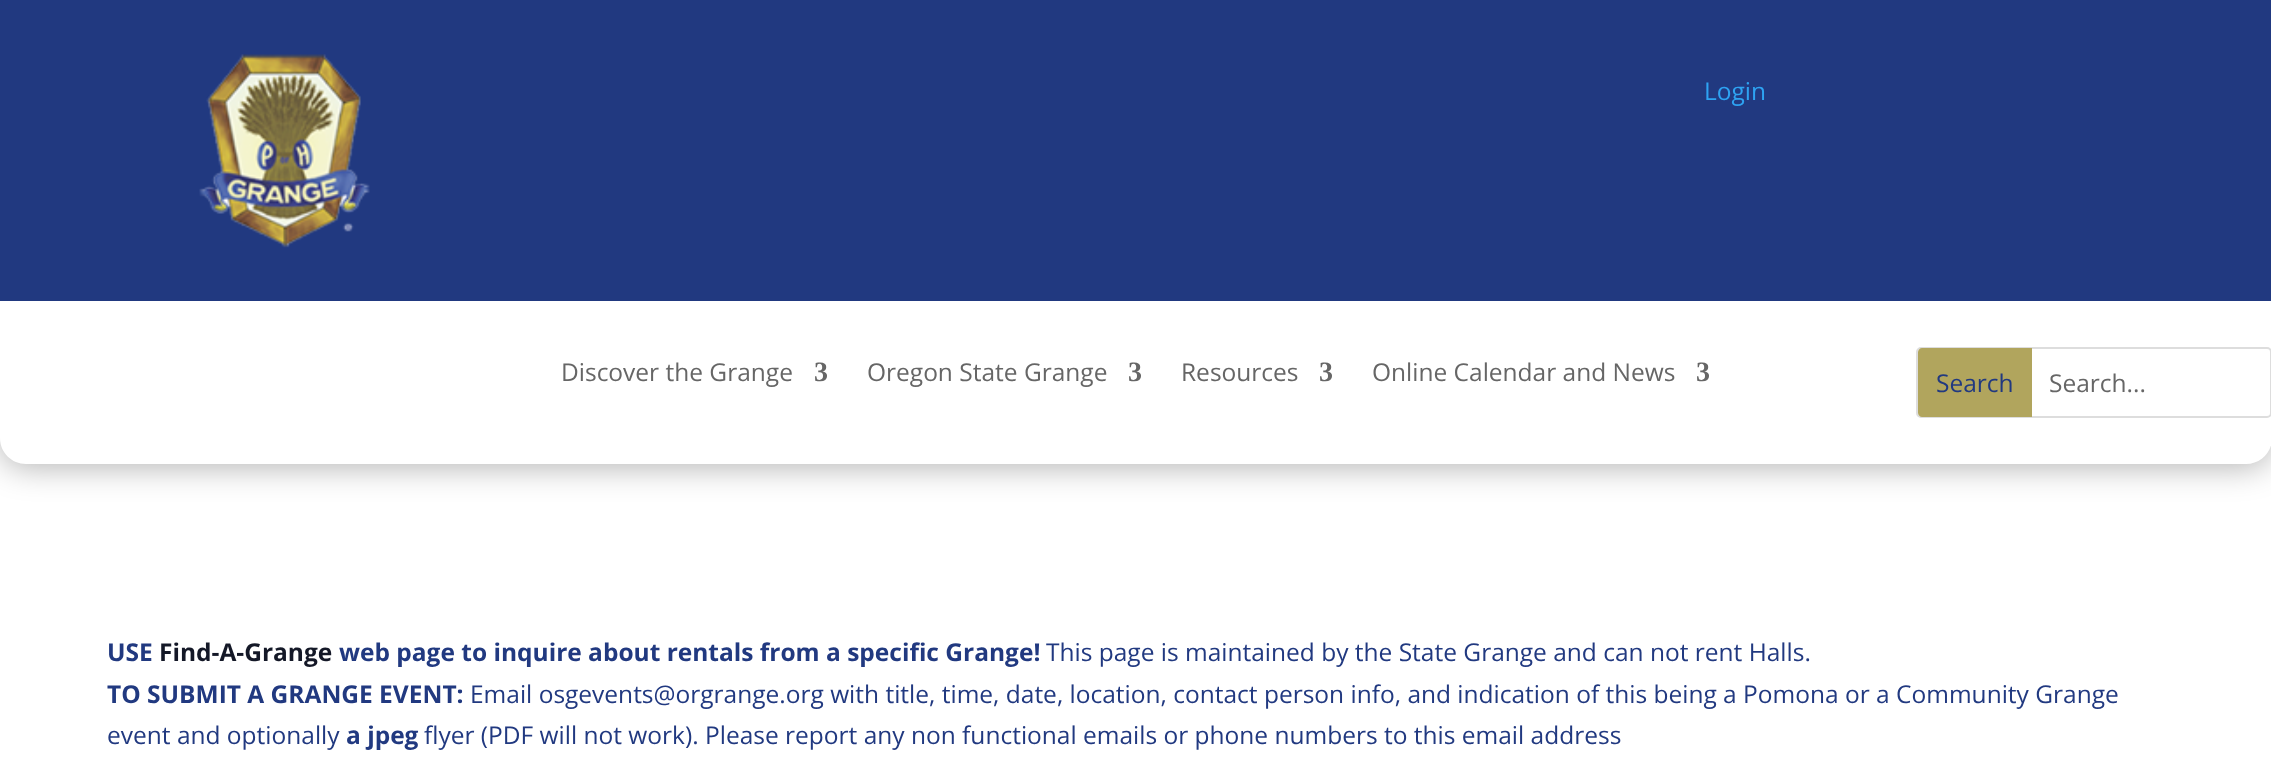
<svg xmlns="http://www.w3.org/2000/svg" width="2271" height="758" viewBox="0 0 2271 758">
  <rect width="100%" height="100%" fill="rgb(255,255,255)"/>
  <rect x="0" y="4" width="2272" height="463" rx="26" fill="rgba(0,0,0,0.3)" filter="blur(16px)"/>
  <path d="M0 0H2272V438C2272 452.5 2260.5 464 2246 464H26C11.5 464 0 452.5 0 438Z" fill="rgb(255,255,255)"/>
  <rect x="0" y="0" width="2271" height="301" fill="rgb(33,57,128)"/>
  <image x="199" y="54" width="171" height="194" href="pic1.png"/>
  <text x="1704" y="100" font-family="Open Sans" font-size="24.5" fill="rgb(46,163,242)">Login</text>
  <text x="561" y="381" font-family="Open Sans" font-size="24.5" fill="rgb(102,102,102)">Discover the Grange</text>
  <text x="814" y="381" font-family="Liberation Serif" font-size="28" font-weight="bold" fill="rgb(102,102,102)">3</text>
  <text x="867" y="381" font-family="Open Sans" font-size="24.5" fill="rgb(102,102,102)">Oregon State Grange</text>
  <text x="1128" y="381" font-family="Liberation Serif" font-size="28" font-weight="bold" fill="rgb(102,102,102)">3</text>
  <text x="1181" y="381" font-family="Open Sans" font-size="24.5" fill="rgb(102,102,102)">Resources</text>
  <text x="1319" y="381" font-family="Liberation Serif" font-size="28" font-weight="bold" fill="rgb(102,102,102)">3</text>
  <text x="1372" y="381" font-family="Open Sans" font-size="24.5" fill="rgb(102,102,102)">Online Calendar and News</text>
  <text x="1696" y="381" font-family="Liberation Serif" font-size="28" font-weight="bold" fill="rgb(102,102,102)">3</text>
  <rect x="1917" y="348" width="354" height="69" rx="4" fill="none" stroke="rgb(221,221,221)" stroke-width="2"/>
  <path d="M1922 348H2032V417H1922C1920 417 1918 415 1918 413V352C1918 350 1920 348 1922 348Z" fill="rgb(177,165,93)"/>
  <text x="1936" y="392" font-family="Open Sans" font-size="24.5" fill="rgb(33,57,128)">Search</text>
  <text x="2049" y="392" font-family="Open Sans" font-size="24.5" fill="rgb(102,102,102)">Search...</text>
  <text x="107" y="661" font-family="Open Sans" font-size="24.5" font-weight="bold" fill="rgb(33,57,128)">USE</text>
  <text x="159" y="661" font-family="Open Sans" font-size="24.5" font-weight="bold" fill="rgb(20,24,39)">Find-A-Grange</text>
  <text x="339" y="661" font-family="Open Sans" font-size="24.5" font-weight="bold" fill="rgb(33,57,128)">web page to inquire about rentals from a specific Grange!</text>
  <text x="1046" y="661" font-family="Open Sans" font-size="24.5" fill="rgb(33,57,128)">This page is maintained by the State Grange and can not rent Halls.</text>
  <text x="107" y="703" font-family="Open Sans" font-size="24.5" font-weight="bold" fill="rgb(33,57,128)">TO SUBMIT A GRANGE EVENT:</text>
  <g font-family="Open Sans" font-size="24.5" fill="rgb(33,57,128)">
    <text x="470" y="703">Email osgevents@orgrange.org with title, time, date, location, contact person info, and indication of this being a Pomona or a Community Grange</text>
    <text x="107" y="744">event and optionally</text>
  </g>
  <text x="346" y="744" font-family="Open Sans" font-size="24.5" font-weight="bold" fill="rgb(33,57,128)">a jpeg</text>
  <text x="424" y="744" font-family="Open Sans" font-size="24.5" fill="rgb(33,57,128)">flyer (PDF will not work). Please report any non functional emails or phone numbers to this email address</text>
</svg>
